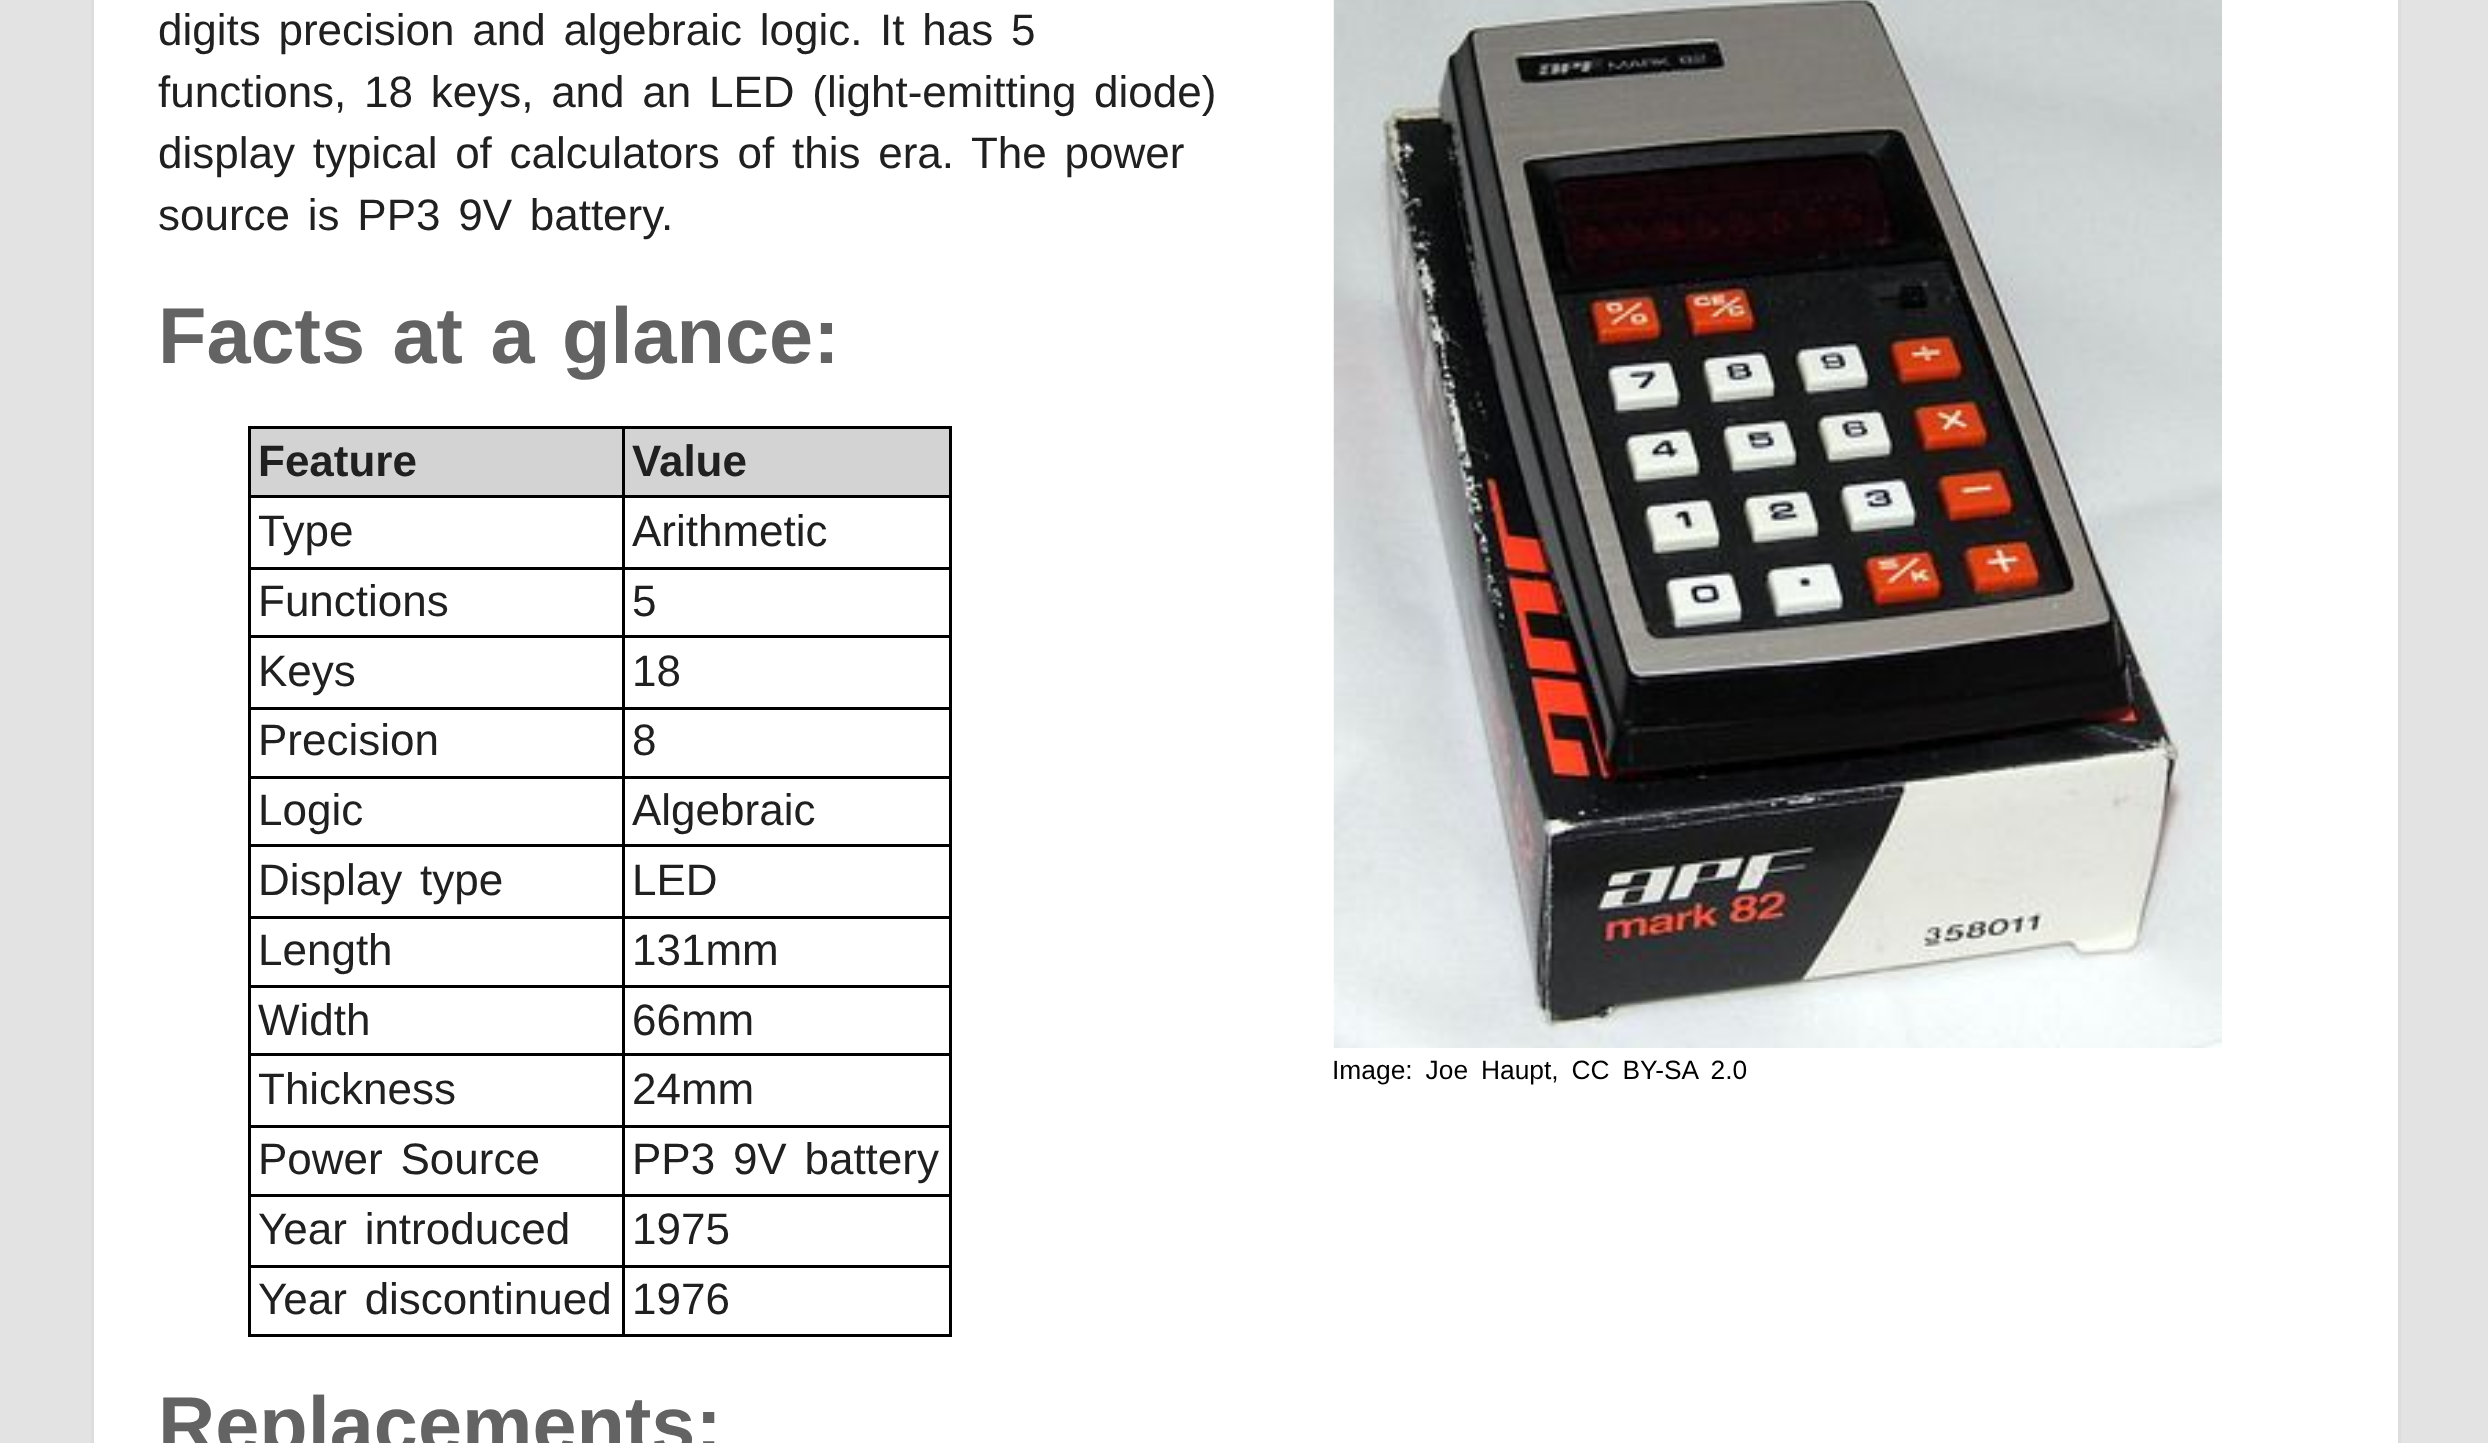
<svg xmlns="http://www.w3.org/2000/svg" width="2488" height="1443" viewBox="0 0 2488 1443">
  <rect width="100%" height="100%" fill="rgb(227,227,227)"/>
  <rect x="92.5" y="-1.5" width="2307" height="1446" fill="rgb(255,255,255)" stroke="rgb(221,221,221)" stroke-width="3"/>
  <g font-family="Liberation Sans" font-size="44" fill="rgb(32,32,32)">
    <text>
      <tspan x="158" y="45" word-spacing="5.5">digits precision and algebraic logic. It has 5</tspan>
      <tspan x="158" y="107" word-spacing="5.5">functions, 18 keys, and an LED (light-emitting diode)</tspan>
      <tspan x="158" y="168" word-spacing="5.5">display typical of calculators of this era. The power</tspan>
      <tspan x="158" y="230" word-spacing="5.5">source is PP3 9V battery.</tspan>
    </text>
  </g>
  <text x="158" y="363" word-spacing="5.5" font-family="Liberation Sans" font-size="79.25" font-weight="bold" fill="rgb(99,99,99)">Facts at a glance:</text>
  <rect x="248" y="426" width="704" height="3" fill="rgb(0,0,0)"/>
  <rect x="949" y="426" width="3" height="911" fill="rgb(0,0,0)"/>
  <rect x="248" y="1334" width="704" height="3" fill="rgb(0,0,0)"/>
  <rect x="248" y="426" width="3" height="911" fill="rgb(0,0,0)"/>
  <rect x="251" y="429" width="371" height="66" fill="rgb(211,211,211)"/>
  <text x="258" y="476" font-family="Liberation Sans" font-size="44" font-weight="bold" fill="rgb(32,32,32)">Feature</text>
  <rect x="625" y="429" width="324" height="66" fill="rgb(211,211,211)"/>
  <rect x="622" y="495" width="330" height="3" fill="rgb(0,0,0)"/>
  <rect x="622" y="567" width="330" height="3" fill="rgb(0,0,0)"/>
  <rect x="622" y="635" width="330" height="3" fill="rgb(0,0,0)"/>
  <rect x="622" y="707" width="330" height="3" fill="rgb(0,0,0)"/>
  <rect x="622" y="776" width="330" height="3" fill="rgb(0,0,0)"/>
  <rect x="622" y="844" width="330" height="3" fill="rgb(0,0,0)"/>
  <rect x="622" y="916" width="330" height="3" fill="rgb(0,0,0)"/>
  <rect x="622" y="985" width="330" height="3" fill="rgb(0,0,0)"/>
  <rect x="622" y="1053" width="330" height="3" fill="rgb(0,0,0)"/>
  <rect x="622" y="1125" width="330" height="3" fill="rgb(0,0,0)"/>
  <rect x="622" y="1194" width="330" height="3" fill="rgb(0,0,0)"/>
  <rect x="622" y="1265" width="330" height="3" fill="rgb(0,0,0)"/>
  <rect x="622" y="1265" width="3" height="72" fill="rgb(0,0,0)"/>
  <rect x="248" y="1265" width="376" height="3" fill="rgb(0,0,0)"/>
  <rect x="622" y="1194" width="3" height="74" fill="rgb(0,0,0)"/>
  <rect x="248" y="1194" width="376" height="3" fill="rgb(0,0,0)"/>
  <rect x="622" y="1125" width="3" height="71" fill="rgb(0,0,0)"/>
  <rect x="248" y="1125" width="376" height="3" fill="rgb(0,0,0)"/>
  <rect x="622" y="1053" width="3" height="75" fill="rgb(0,0,0)"/>
  <rect x="248" y="1053" width="376" height="3" fill="rgb(0,0,0)"/>
  <rect x="622" y="985" width="3" height="71" fill="rgb(0,0,0)"/>
  <rect x="248" y="985" width="376" height="3" fill="rgb(0,0,0)"/>
  <rect x="622" y="916" width="3" height="71" fill="rgb(0,0,0)"/>
  <rect x="248" y="916" width="376" height="3" fill="rgb(0,0,0)"/>
  <rect x="622" y="844" width="3" height="75" fill="rgb(0,0,0)"/>
  <rect x="248" y="844" width="376" height="3" fill="rgb(0,0,0)"/>
  <rect x="622" y="776" width="3" height="71" fill="rgb(0,0,0)"/>
  <rect x="248" y="776" width="376" height="3" fill="rgb(0,0,0)"/>
  <rect x="622" y="707" width="3" height="71" fill="rgb(0,0,0)"/>
  <rect x="248" y="707" width="376" height="3" fill="rgb(0,0,0)"/>
  <rect x="622" y="635" width="3" height="75" fill="rgb(0,0,0)"/>
  <rect x="248" y="635" width="376" height="3" fill="rgb(0,0,0)"/>
  <rect x="622" y="567" width="3" height="71" fill="rgb(0,0,0)"/>
  <rect x="248" y="567" width="376" height="3" fill="rgb(0,0,0)"/>
  <rect x="622" y="495" width="3" height="74" fill="rgb(0,0,0)"/>
  <rect x="248" y="495" width="376" height="3" fill="rgb(0,0,0)"/>
  <rect x="622" y="426" width="3" height="72" fill="rgb(0,0,0)"/>
  <text x="632" y="476" font-family="Liberation Sans" font-size="44" font-weight="bold" fill="rgb(32,32,32)">Value</text>
  <g font-family="Liberation Sans" font-size="44" fill="rgb(32,32,32)">
    <text x="258" y="546">Type</text>
    <text x="632" y="546">Arithmetic</text>
    <text x="258" y="616">Functions</text>
    <text x="632" y="616">5</text>
    <text x="258" y="686">Keys</text>
    <text x="632" y="686">18</text>
    <text x="258" y="755">Precision</text>
    <text x="632" y="755">8</text>
    <text x="258" y="825">Logic</text>
    <text x="632" y="825">Algebraic</text>
    <text x="258" y="895" word-spacing="5.5">Display type</text>
    <text x="632" y="895">LED</text>
    <text x="258" y="965">Length</text>
    <text x="632" y="965">131mm</text>
    <text x="258" y="1035">Width</text>
    <text x="632" y="1035">66mm</text>
    <text x="258" y="1104">Thickness</text>
    <text x="632" y="1104">24mm</text>
    <text x="258" y="1174" word-spacing="5.5">Power Source</text>
    <text x="632" y="1174" word-spacing="5.5">PP3 9V battery</text>
    <text x="258" y="1244" word-spacing="5.5">Year introduced</text>
    <text x="632" y="1244">1975</text>
    <text x="258" y="1314" word-spacing="5.5">Year discontinued</text>
    <text x="632" y="1314">1976</text>
  </g>
  <image x="1333" y="0" width="889" height="1048" href="pic1.png"/>
  <text x="1332" y="1079" word-spacing="5.5" font-family="Liberation Sans" font-size="26.4" fill="rgb(0,0,0)">Image: Joe Haupt, CC BY-SA 2.0</text>
  <text x="158" y="1452" font-family="Liberation Sans" font-size="79.25" font-weight="bold" fill="rgb(99,99,99)">Replacements:</text>
</svg>
